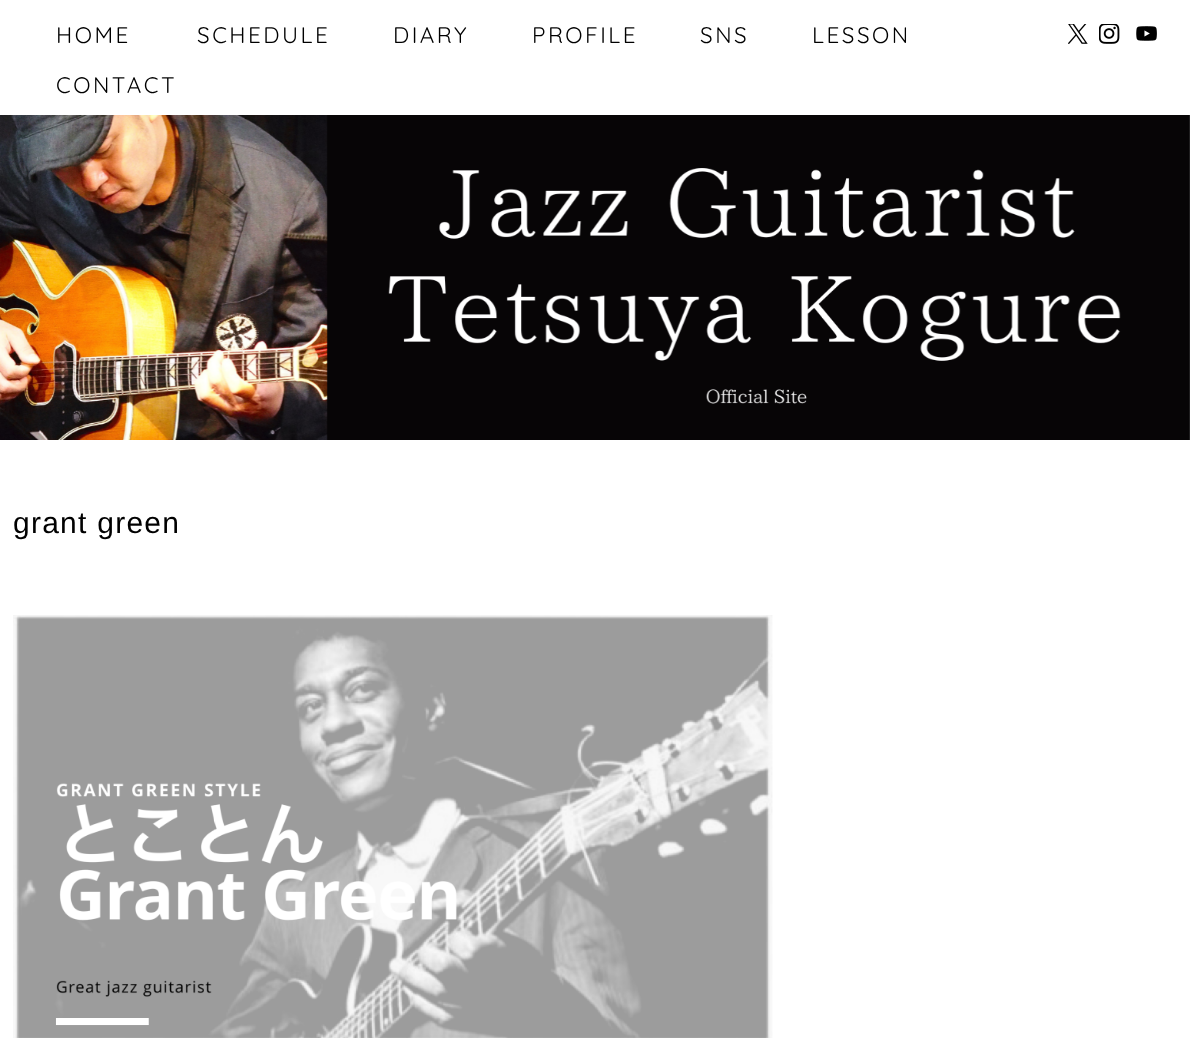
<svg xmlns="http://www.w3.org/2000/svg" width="1190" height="1038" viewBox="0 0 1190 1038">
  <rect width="100%" height="100%" fill="rgb(255,255,255)"/>
  <g font-family="Quicksand" font-size="22.5" font-weight="300" letter-spacing="2.5" fill="rgb(0,0,0)">
    <text x="56" y="43">HOME</text>
    <text x="197" y="43">SCHEDULE</text>
    <text x="393" y="43">DIARY</text>
    <text x="532" y="43">PROFILE</text>
    <text x="700" y="43">SNS</text>
    <text x="812" y="43">LESSON</text>
    <text x="56" y="93">CONTACT</text>
  </g>
  <image x="1068" y="24" width="20" height="20" href="pic1.png"/>
  <image x="1099" y="24" width="21" height="20" href="pic2.png"/>
  <image x="1136" y="26" width="21" height="15" href="pic3.png"/>
  <image x="0" y="115" width="1190" height="325" href="pic4.png"/>
  <text x="13" y="533" font-family="Liberation Sans" font-size="30" letter-spacing="1.25" fill="rgb(0,0,0)">grant green</text>
  <image x="13" y="615" width="760" height="423" href="pic5.png"/>
</svg>
